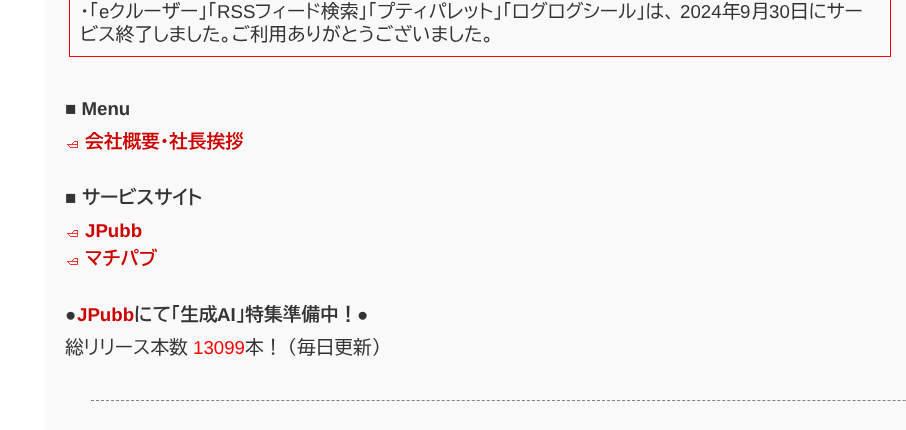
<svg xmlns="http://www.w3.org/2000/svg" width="906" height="430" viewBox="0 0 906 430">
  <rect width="100%" height="100%" fill="rgb(255,255,255)"/>
  <rect x="45" y="0" width="861" height="430" fill="rgb(249,249,249)"/>
  <rect x="69.5" y="-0.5" width="821" height="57" fill="none" stroke="rgb(255,0,0)"/>
  <text x="80" y="18" font-family="BIZ UDPGothic" font-size="18.7" fill="rgb(51,51,51)">・「</text>
  <text x="99" y="18" font-family="Liberation Sans" font-size="18.7" fill="rgb(51,51,51)">e</text>
  <text x="109" y="18" font-family="BIZ UDPGothic" font-size="18.7" fill="rgb(51,51,51)">クルーザー」「</text>
  <text x="217" y="18" font-family="Liberation Sans" font-size="18.7" fill="rgb(51,51,51)">RSS</text>
  <text x="255" y="18" font-family="BIZ UDPGothic" font-size="18.7" fill="rgb(51,51,51)">フィード検索」「プティパレット」「ログログシール」は、</text>
  <text x="680" y="18" font-family="Liberation Sans" font-size="18.7" fill="rgb(51,51,51)">2024</text>
  <text x="722" y="18" font-family="BIZ UDPGothic" font-size="18.7" fill="rgb(51,51,51)">年</text>
  <text x="740" y="18" font-family="Liberation Sans" font-size="18.7" fill="rgb(51,51,51)">9</text>
  <text x="751" y="18" font-family="BIZ UDPGothic" font-size="18.7" fill="rgb(51,51,51)">月</text>
  <text x="769" y="18" font-family="Liberation Sans" font-size="18.7" fill="rgb(51,51,51)">30</text>
  <g font-family="BIZ UDPGothic" font-size="18.7" fill="rgb(51,51,51)">
    <text x="790" y="18">日にサー</text>
    <text x="80" y="41">ビス終了しました。ご利用ありがとうございました。</text>
  </g>
  <text x="65" y="115" font-family="Liberation Sans" font-size="18.7" font-weight="bold" fill="rgb(51,51,51)">■ Menu</text>
  <image x="67" y="141" width="11" height="7" href="pic1.png"/>
  <text x="85" y="148" font-family="BIZ UDPGothic" font-size="18.7" font-weight="bold" fill="rgb(204,0,0)">会社概要・社長挨拶</text>
  <text x="65" y="204" font-family="Liberation Sans" font-size="18.7" font-weight="bold" fill="rgb(51,51,51)">■</text>
  <text x="82" y="204" font-family="BIZ UDPGothic" font-size="18.7" font-weight="bold" fill="rgb(51,51,51)">サービスサイト</text>
  <image x="67" y="230" width="11" height="7" href="pic1.png"/>
  <text x="85" y="237" font-family="Liberation Sans" font-size="18.7" font-weight="bold" fill="rgb(204,0,0)">JPubb</text>
  <image x="67" y="258" width="11" height="7" href="pic1.png"/>
  <text x="85" y="265" font-family="BIZ UDPGothic" font-size="18.7" font-weight="bold" fill="rgb(204,0,0)">マチパブ</text>
  <text x="65" y="321" font-family="Liberation Sans" font-size="18.7" font-weight="bold" fill="rgb(51,51,51)">●</text>
  <text x="77" y="321" font-family="Liberation Sans" font-size="18.7" font-weight="bold" fill="rgb(204,0,0)">JPubb</text>
  <text x="134" y="321" font-family="BIZ UDPGothic" font-size="18.7" font-weight="bold" fill="rgb(51,51,51)">にて「生成</text>
  <text x="217" y="321" font-family="Liberation Sans" font-size="18.7" font-weight="bold" fill="rgb(51,51,51)">AI</text>
  <text x="236" y="321" font-family="BIZ UDPGothic" font-size="18.7" font-weight="bold" fill="rgb(51,51,51)">」特集準備中！</text>
  <text x="357" y="321" font-family="Liberation Sans" font-size="18.7" font-weight="bold" fill="rgb(51,51,51)">●</text>
  <text x="65" y="354" font-family="BIZ UDPGothic" font-size="18.7" fill="rgb(51,51,51)">総リリース本数</text>
  <text x="193" y="354" font-family="Liberation Sans" font-size="18.7" fill="rgb(255,0,0)">13099</text>
  <text x="245" y="354" word-spacing="-1" font-family="BIZ UDPGothic" font-size="18.7" fill="rgb(51,51,51)">本！ （毎日更新）</text>
  <path d="M91 400.5H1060" fill="none" stroke="rgb(128,128,128)" stroke-dasharray="3 2.01"/>
</svg>
